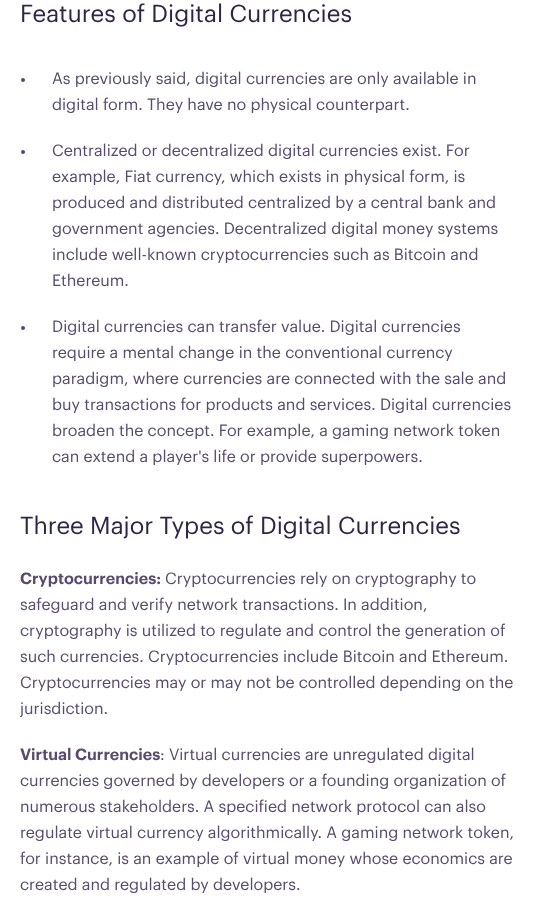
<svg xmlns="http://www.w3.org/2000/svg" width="535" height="924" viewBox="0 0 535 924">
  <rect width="100%" height="100%" fill="rgb(255,255,255)"/>
  <text x="20" y="22" font-family="Graphik" font-size="24" fill="rgb(49,37,70)">Features of Digital Currencies</text>
  <circle cx="23" cy="80" r="2" fill="rgb(88,75,109)"/>
  <g font-family="Graphik" font-size="16" fill="rgb(88,75,109)">
    <text>
      <tspan x="52" y="84">As previously said, digital currencies are only available in</tspan>
      <tspan x="52" y="110">digital form. They have no physical counterpart.</tspan>
    </text>
  </g>
  <circle cx="23" cy="152" r="2" fill="rgb(88,75,109)"/>
  <g font-family="Graphik" font-size="16" fill="rgb(88,75,109)">
    <text>
      <tspan x="52" y="156">Centralized or decentralized digital currencies exist. For</tspan>
      <tspan x="52" y="182">example, Fiat currency, which exists in physical form, is</tspan>
      <tspan x="52" y="208">produced and distributed centralized by a central bank and</tspan>
      <tspan x="52" y="234">government agencies. Decentralized digital money systems</tspan>
      <tspan x="52" y="260">include well-known cryptocurrencies such as Bitcoin and</tspan>
      <tspan x="52" y="286">Ethereum.</tspan>
    </text>
  </g>
  <circle cx="23" cy="328" r="2" fill="rgb(88,75,109)"/>
  <g font-family="Graphik" font-size="16" fill="rgb(88,75,109)">
    <text>
      <tspan x="52" y="332">Digital currencies can transfer value. Digital currencies</tspan>
      <tspan x="52" y="358">require a mental change in the conventional currency</tspan>
      <tspan x="52" y="384">paradigm, where currencies are connected with the sale and</tspan>
      <tspan x="52" y="410">buy transactions for products and services. Digital currencies</tspan>
      <tspan x="52" y="436">broaden the concept. For example, a gaming network token</tspan>
      <tspan x="52" y="462">can extend a player's life or provide superpowers.</tspan>
    </text>
  </g>
  <text x="20" y="534" font-family="Graphik" font-size="24" fill="rgb(49,37,70)">Three Major Types of Digital Currencies</text>
  <text x="20" y="584" font-family="Graphik" font-size="16" font-weight="600" fill="rgb(88,75,109)">Cryptocurrencies:</text>
  <g font-family="Graphik" font-size="16" fill="rgb(88,75,109)">
    <text x="165" y="584">Cryptocurrencies rely on cryptography to</text>
    <text>
      <tspan x="20" y="610">safeguard and verify network transactions. In addition,</tspan>
      <tspan x="20" y="636">cryptography is utilized to regulate and control the generation of</tspan>
      <tspan x="20" y="662">such currencies. Cryptocurrencies include Bitcoin and Ethereum.</tspan>
      <tspan x="20" y="688">Cryptocurrencies may or may not be controlled depending on the</tspan>
      <tspan x="20" y="714">jurisdiction.</tspan>
    </text>
  </g>
  <text x="20" y="760" font-family="Graphik" font-size="16" font-weight="600" fill="rgb(88,75,109)">Virtual Currencies</text>
  <g font-family="Graphik" font-size="16" fill="rgb(88,75,109)">
    <text x="160" y="760">: Virtual currencies are unregulated digital</text>
    <text>
      <tspan x="20" y="786">currencies governed by developers or a founding organization of</tspan>
      <tspan x="20" y="812">numerous stakeholders. A specified network protocol can also</tspan>
      <tspan x="20" y="838">regulate virtual currency algorithmically. A gaming network token,</tspan>
      <tspan x="20" y="864">for instance, is an example of virtual money whose economics are</tspan>
      <tspan x="20" y="890">created and regulated by developers.</tspan>
    </text>
  </g>
</svg>
